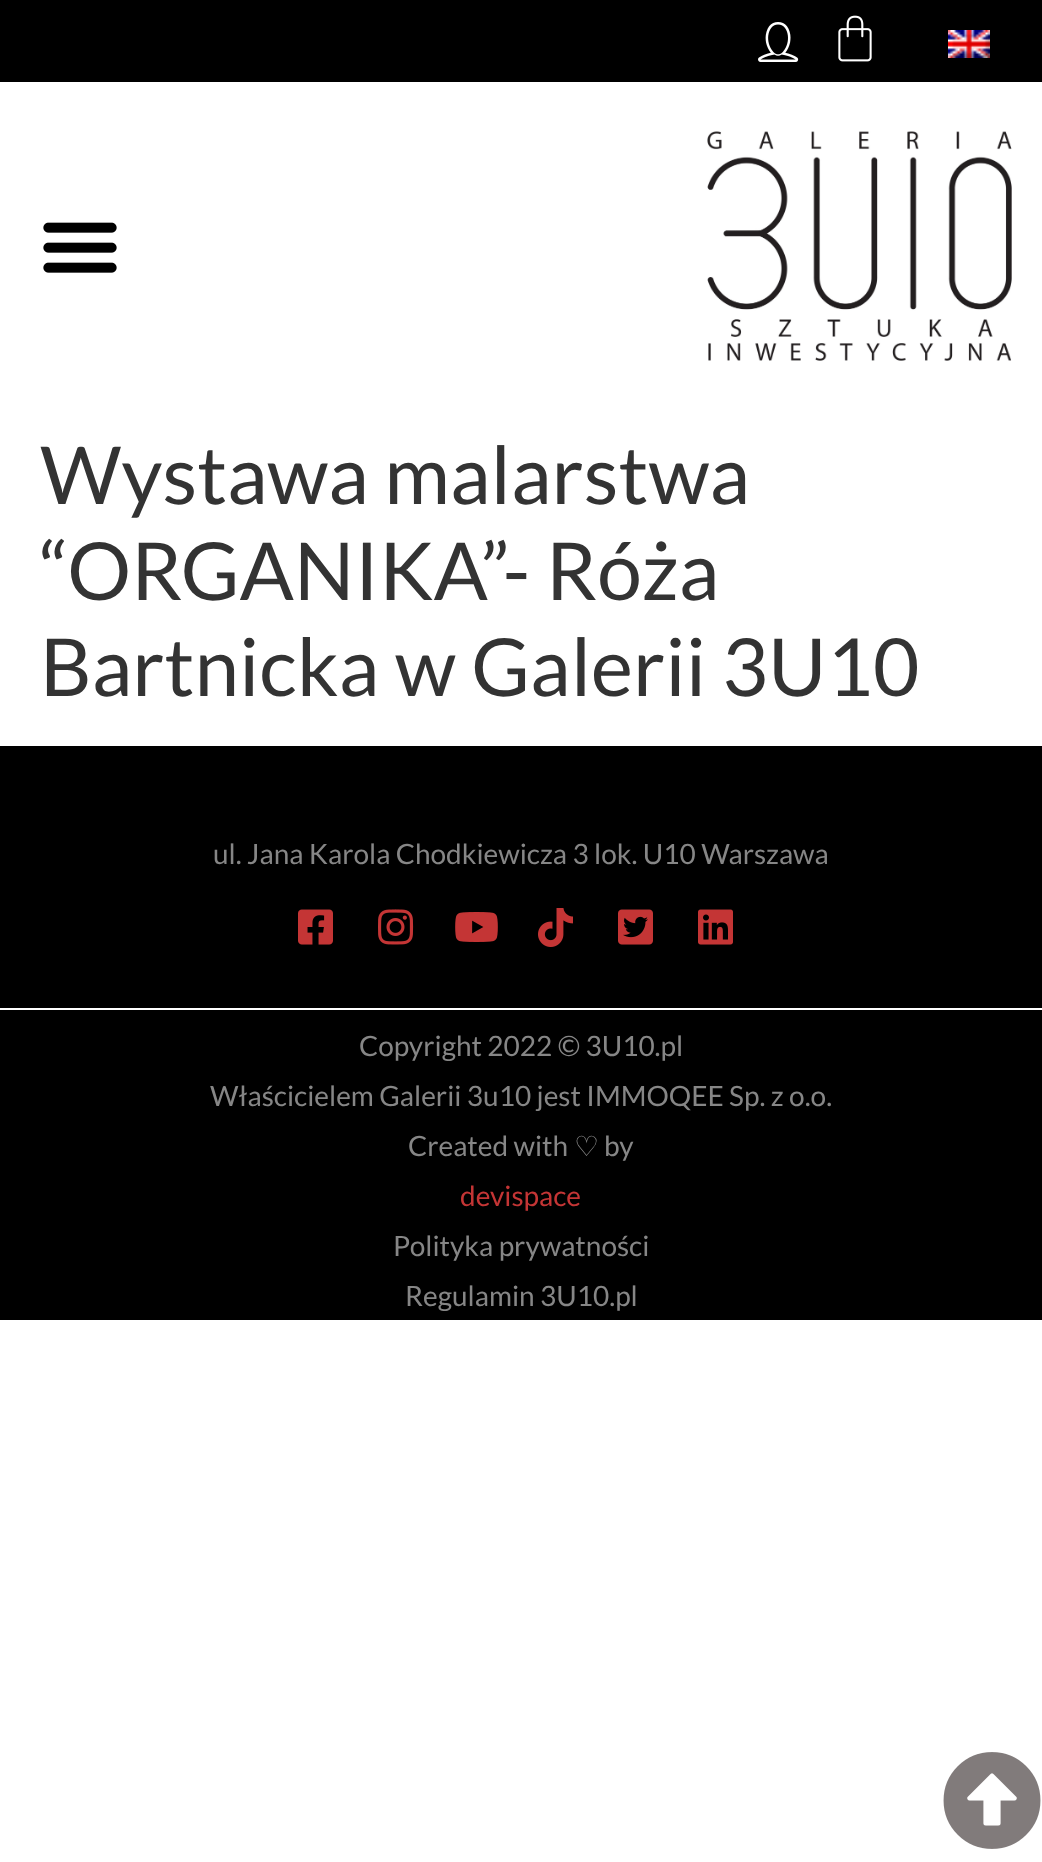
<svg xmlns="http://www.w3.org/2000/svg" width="1042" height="1862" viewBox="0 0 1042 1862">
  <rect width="100%" height="100%" fill="rgb(255,255,255)"/>
  <rect x="0" y="0" width="1042" height="82" fill="rgb(0,0,0)"/>
  <image x="758" y="22" width="41" height="40" href="pic1.png"/>
  <image x="838" y="15" width="34" height="47" href="pic2.png"/>
  <image x="948" y="30" width="42" height="28" href="pic3.png"/>
  <image x="43" y="222" width="74" height="51" href="pic4.png"/>
  <image x="707" y="131" width="305" height="230" href="pic5.png"/>
  <g font-family="Lato" font-size="80" fill="rgb(51,51,51)">
    <text>
      <tspan x="40" y="504">Wystawa malarstwa</tspan>
      <tspan x="40" y="600">“ORGANIKA”- Róża</tspan>
      <tspan x="40" y="696">Bartnicka w Galerii 3U10</tspan>
    </text>
  </g>
  <rect x="0" y="746" width="1042" height="262" fill="rgb(0,0,0)"/>
  <text x="213" y="864" font-family="Lato" font-size="28" fill="rgb(134,134,134)">ul. Jana Karola Chodkiewicza 3 lok. U10 Warszawa</text>
  <image x="298" y="909" width="35" height="36" href="pic6.png"/>
  <image x="378" y="909" width="36" height="36" href="pic7.png"/>
  <image x="455" y="912" width="43" height="30" href="pic8.png"/>
  <image x="538" y="908" width="35" height="39" href="pic9.png"/>
  <image x="618" y="909" width="35" height="36" href="pic10.png"/>
  <image x="698" y="909" width="35" height="36" href="pic11.png"/>
  <image x="943" y="1752" width="98" height="97" href="pic12.png"/>
  <rect x="0" y="1010" width="1042" height="310" fill="rgb(0,0,0)"/>
  <g font-family="Lato" font-size="28" fill="rgb(134,134,134)">
    <text x="359" y="1056">Copyright 2022 © 3U10.pl</text>
    <text x="210" y="1106">Właścicielem Galerii 3u10 jest IMMOQEE Sp. z o.o.</text>
    <text x="408" y="1156">Created with</text>
  </g>
  <text x="574" y="1156" font-family="DejaVu Sans" font-size="28" fill="rgb(134,134,134)">♡</text>
  <text x="604" y="1156" font-family="Lato" font-size="28" fill="rgb(134,134,134)">by</text>
  <text x="460" y="1206" font-family="Lato" font-size="28" fill="rgb(196,53,53)">devispace</text>
  <g font-family="Lato" font-size="28" fill="rgb(134,134,134)">
    <text x="393" y="1256">Polityka prywatności</text>
    <text x="405" y="1306">Regulamin 3U10.pl</text>
  </g>
</svg>
